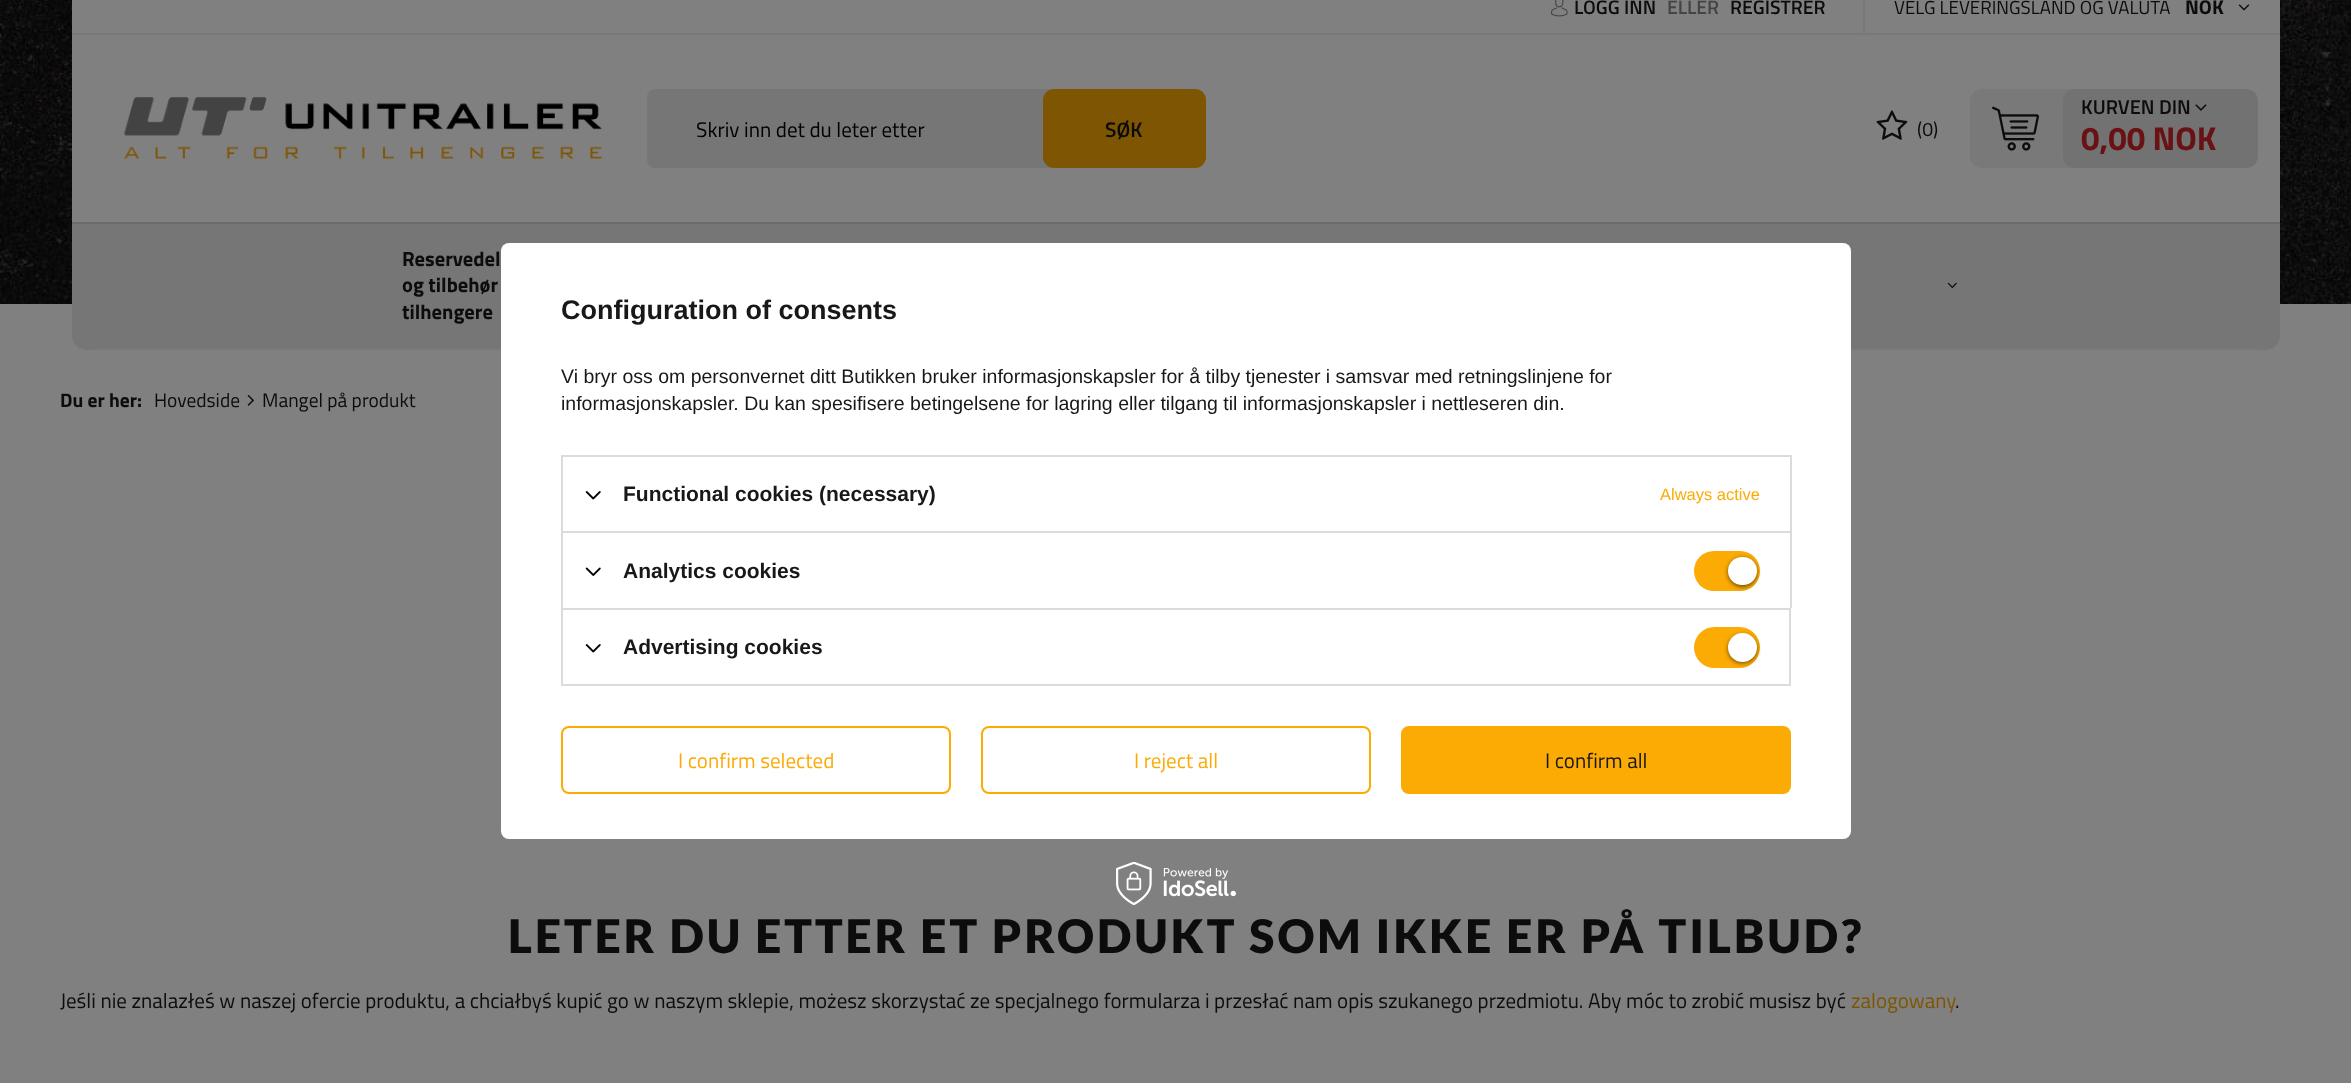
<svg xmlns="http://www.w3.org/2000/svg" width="2351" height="1083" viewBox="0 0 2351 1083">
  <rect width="100%" height="100%" fill="rgb(128,128,128)"/>
  <image x="0" y="0" width="2351" height="304" href="pic1.png"/>
  <rect x="72" y="-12" width="2208" height="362" rx="12" fill="rgb(128,128,128)"/>
  <rect x="72" y="33" width="2208" height="2" fill="rgb(120,121,122)"/>
  <image x="1551" y="0" width="17" height="17" href="pic2.png"/>
  <text x="1574" y="14" font-family="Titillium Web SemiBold" font-size="19.5" font-weight="600" fill="rgb(12,12,12)">LOGG INN</text>
  <text x="1667" y="14" font-family="Titillium Web SemiBold" font-size="19.5" font-weight="600" fill="rgb(68,68,68)">ELLER</text>
  <text x="1730" y="14" font-family="Titillium Web SemiBold" font-size="19.5" font-weight="600" fill="rgb(12,12,12)">REGISTRER</text>
  <rect x="1863" y="0" width="2" height="33" fill="rgb(120,121,122)"/>
  <text x="1894" y="14" font-family="Titillium Web" font-size="18.75" fill="rgb(12,12,12)">VELG LEVERINGSLAND OG VALUTA</text>
  <text x="2185" y="14" font-family="Titillium Web" font-size="20" font-weight="bold" fill="rgb(12,12,12)">NOK</text>
  <image x="2238" y="4" width="12" height="7" href="pic3.png"/>
  <image x="124" y="97" width="478" height="62" href="pic4.png"/>
  <rect x="647" y="89" width="408" height="79" rx="8" fill="rgb(118,118,118)"/>
  <text x="696" y="137" font-family="Titillium Web" font-size="21" fill="rgb(0,0,0)">Skriv inn det du leter etter</text>
  <rect x="1043" y="89" width="163" height="79" rx="11" fill="rgb(126,85,2)"/>
  <text x="1105" y="137" font-family="Titillium Web SemiBold" font-size="21" font-weight="600" fill="rgb(12,12,12)">SØK</text>
  <image x="1876" y="110" width="32" height="30" href="pic5.png"/>
  <text x="1917" y="136" font-family="Titillium Web" font-size="19.5" fill="rgb(12,12,12)">(0)</text>
  <path d="M1982 89H2078V168H1982C1975.5 168 1970 162.5 1970 156V101C1970 94.5 1975.5 89 1982 89Z" fill="rgb(121,121,121)"/>
  <rect x="2063" y="89" width="195" height="79" rx="12" fill="rgb(114,114,114)"/>
  <image x="1992" y="106" width="47" height="45" href="pic6.png"/>
  <text x="2081" y="114" font-family="Titillium Web SemiBold" font-size="20" font-weight="600" fill="rgb(12,12,12)">KURVEN DIN</text>
  <image x="2195" y="104" width="12" height="7" href="pic7.png"/>
  <text x="2081" y="150" font-family="Titillium Web" font-size="33" font-weight="bold" fill="rgb(105,17,19)">0,00 NOK</text>
  <path d="M72 222H2280V335C2280 343.5 2273.5 350 2265 350H87C78.5 350 72 343.5 72 335Z" fill="rgb(118,118,118)"/>
  <rect x="72" y="222" width="2208" height="2" fill="rgb(107,107,107)"/>
  <rect x="95" y="348" width="2163" height="2" fill="rgb(120,121,122)"/>
  <g font-family="Titillium Web" font-size="20.5" font-weight="bold" fill="rgb(12,12,12)">
    <text>
      <tspan x="402" y="266">Reservedel</tspan>
      <tspan x="402" y="292">og tilbehør</tspan>
      <tspan x="402" y="319">tilhengere</tspan>
    </text>
  </g>
  <image x="1947" y="282" width="10" height="7" href="pic8.png"/>
  <text x="60" y="407" font-family="Titillium Web" font-size="19.5" font-weight="bold" fill="rgb(12,12,12)">Du er her:</text>
  <text x="154" y="407" font-family="Titillium Web" font-size="19.5" fill="rgb(12,12,12)">Hovedside</text>
  <image x="247" y="395" width="7" height="11" href="pic9.png"/>
  <text x="262" y="407" font-family="Titillium Web" font-size="19.5" fill="rgb(12,12,12)">Mangel på produkt</text>
  <text x="508" y="953" font-family="Lato" font-size="46.2" font-weight="900" letter-spacing="3" fill="rgb(12,12,12)">LETER DU ETTER ET PRODUKT SOM IKKE ER PÅ TILBUD?</text>
  <text x="60" y="1008" font-family="Titillium Web" font-size="21" fill="rgb(12,12,12)">Jeśli nie znalazłeś w naszej ofercie produktu, a chciałbyś kupić go w naszym sklepie, możesz skorzystać ze specjalnego formularza i przesłać nam opis szukanego przedmiotu. Aby móc to zrobić musisz być</text>
  <text x="1851" y="1008" font-family="Titillium Web" font-size="21" fill="rgb(126,85,2)">zalogowany</text>
  <text x="1955" y="1008" font-family="Titillium Web" font-size="21" fill="rgb(12,12,12)">.</text>
  <rect x="501" y="243" width="1350" height="596" rx="8" fill="rgb(255,255,255)"/>
  <text x="561" y="319" font-family="Liberation Sans" font-size="27" font-weight="bold" fill="rgb(24,24,24)">Configuration of consents</text>
  <g font-family="Liberation Sans" font-size="19.5" fill="rgb(24,24,24)">
    <text>
      <tspan x="561" y="383">Vi bryr oss om personvernet ditt Butikken bruker informasjonskapsler for å tilby tjenester i samsvar med retningslinjene for</tspan>
      <tspan x="561" y="410">informasjonskapsler. Du kan spesifisere betingelsene for lagring eller tilgang til informasjonskapsler i nettleseren din.</tspan>
    </text>
  </g>
  <rect x="561" y="455" width="1230" height="2" fill="rgb(219,219,219)"/>
  <rect x="1790" y="455" width="2" height="76" fill="rgb(219,219,219)"/>
  <rect x="561" y="455" width="2" height="76" fill="rgb(219,219,219)"/>
  <image x="585" y="491" width="16" height="9" href="pic10.png"/>
  <text x="623" y="501" font-family="Liberation Sans" font-size="21" font-weight="bold" fill="rgb(24,24,24)">Functional cookies (necessary)</text>
  <text x="1660" y="500" font-family="Liberation Sans" font-size="16.5" fill="rgb(252,170,4)">Always active</text>
  <rect x="561" y="531" width="1230" height="2" fill="rgb(219,219,219)"/>
  <rect x="1790" y="531" width="2" height="77" fill="rgb(219,219,219)"/>
  <rect x="561" y="531" width="2" height="77" fill="rgb(219,219,219)"/>
  <image x="585" y="567" width="16" height="9" href="pic11.png"/>
  <text x="623" y="578" font-family="Liberation Sans" font-size="21" font-weight="bold" fill="rgb(24,24,24)">Analytics cookies</text>
  <rect x="1694" y="551" width="66" height="40" rx="20" fill="rgb(252,170,4)"/>
  <rect x="1728" y="558" width="29" height="29" rx="14.5" fill="rgba(0,0,0,0.56)" filter="blur(2px)"/>
  <rect x="1728" y="557" width="29" height="28" rx="14" fill="rgb(255,255,255)"/>
  <rect x="562" y="609" width="1228" height="76" fill="none" stroke="rgb(219,219,219)" stroke-width="2"/>
  <image x="585" y="644" width="16" height="9" href="pic10.png"/>
  <text x="623" y="654" font-family="Liberation Sans" font-size="21" font-weight="bold" fill="rgb(24,24,24)">Advertising cookies</text>
  <rect x="1694" y="627" width="66" height="41" rx="20.5" fill="rgb(252,170,4)"/>
  <rect x="1728" y="635" width="29" height="28" rx="14" fill="rgba(0,0,0,0.56)" filter="blur(2px)"/>
  <circle cx="1742.5" cy="647.5" r="14.5" fill="rgb(255,255,255)"/>
  <rect x="562" y="727" width="388" height="66" rx="7" fill="none" stroke="rgb(252,170,4)" stroke-width="2"/>
  <text x="678" y="768" font-family="Titillium Web" font-size="21" fill="rgb(252,170,4)">I confirm selected</text>
  <rect x="982" y="727" width="388" height="66" rx="7" fill="none" stroke="rgb(252,170,4)" stroke-width="2"/>
  <text x="1134" y="768" font-family="Titillium Web" font-size="21" fill="rgb(252,170,4)">I reject all</text>
  <rect x="1402" y="727" width="388" height="66" rx="7" fill="rgb(252,170,4)" stroke="rgb(252,170,4)" stroke-width="2"/>
  <text x="1545" y="768" font-family="Titillium Web" font-size="21" fill="rgb(24,24,24)">I confirm all</text>
  <image x="1116" y="862" width="120" height="43" href="pic12.png"/>
</svg>
